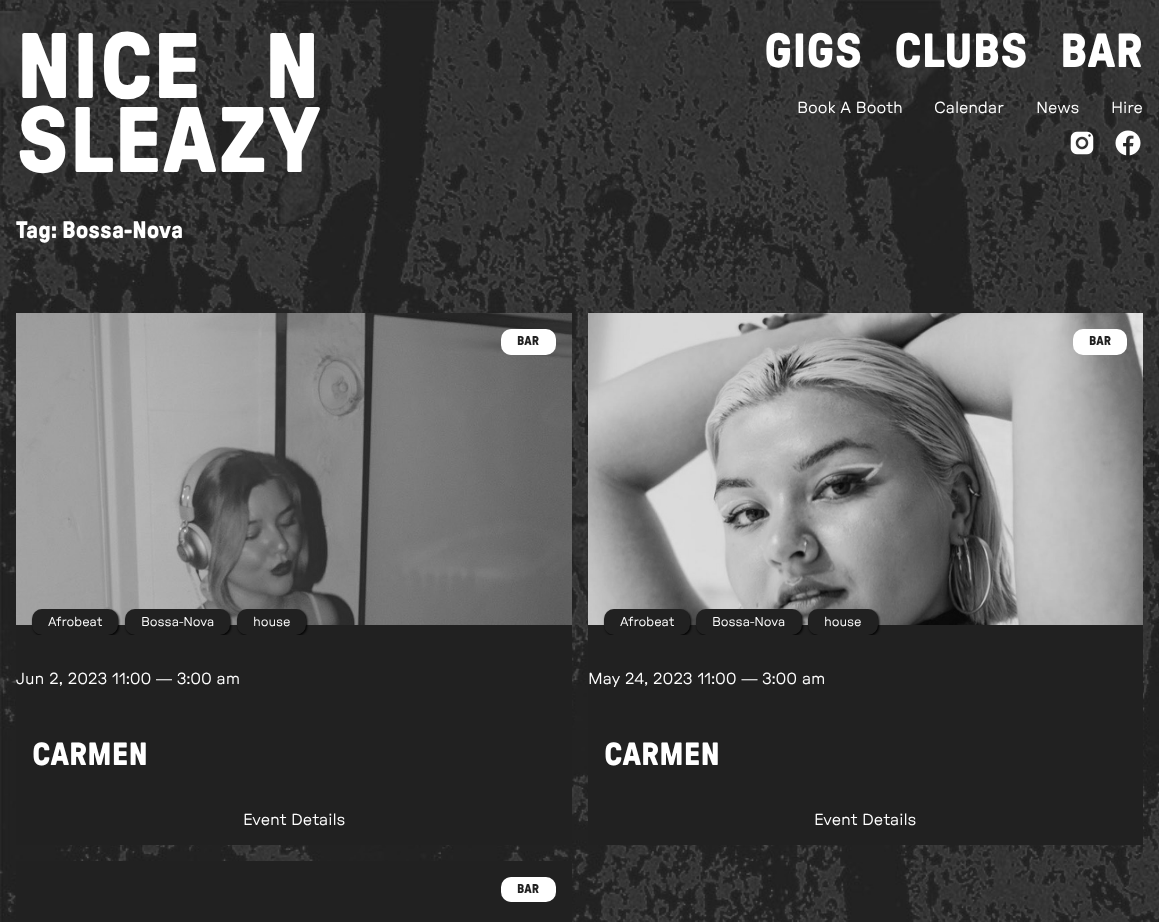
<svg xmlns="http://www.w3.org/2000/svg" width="1159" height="922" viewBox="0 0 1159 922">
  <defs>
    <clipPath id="clip1"><rect x="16" y="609" width="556" height="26"/></clipPath>
    <clipPath id="clip2"><rect x="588" y="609" width="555" height="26"/></clipPath>
  </defs>
  <rect width="100%" height="100%" fill="rgb(255,255,255)"/>
  <image x="0" y="0" width="1159" height="922" href="pic1.png"/>
  <g font-family="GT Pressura" font-size="93" font-weight="bold" fill="rgb(255,255,255)">
    <text x="16" y="98">NICE</text>
    <text x="264" y="98">N</text>
    <text x="16" y="172">SLEAZY</text>
  </g>
  <g font-family="GT Pressura" font-size="48" font-weight="bold" fill="rgb(255,255,255)">
    <text x="764" y="67">GIGS</text>
    <text x="894" y="67">CLUBS</text>
    <text x="1060" y="67">BAR</text>
  </g>
  <g font-family="GT Pressura" font-size="16" font-weight="300" fill="rgb(255,255,255)">
    <text x="797" y="113">Book A Booth</text>
    <text x="934" y="113">Calendar</text>
    <text x="1036" y="113">News</text>
    <text x="1111" y="113">Hire</text>
  </g>
  <image x="1070" y="131" width="24" height="24" href="pic2.png"/>
  <image x="1115" y="130" width="26" height="26" href="pic3.png"/>
  <text x="16" y="238" font-family="GT Pressura" font-size="24" font-weight="bold" fill="rgb(255,255,255)">Tag: Bossa-Nova</text>
  <rect x="16" y="625" width="556" height="220" fill="rgb(33,33,33)"/>
  <image x="16" y="313" width="556" height="312" href="pic4.png"/>
  <rect x="501" y="329" width="55" height="26" rx="10" fill="rgb(255,255,255)"/>
  <text x="517" y="345" font-family="GT Pressura" font-size="12.75" font-weight="bold" fill="rgb(33,33,33)">BAR</text>
  <g clip-path="url(#clip1)">
    <rect x="33" y="610" width="86" height="26" rx="10" fill="rgb(0,0,0)" filter="blur(1px)"/>
  </g>
  <rect x="32" y="609" width="86" height="26" rx="10" fill="rgb(33,33,33)"/>
  <text x="48" y="626" font-family="GT Pressura" font-size="12.75" font-weight="300" fill="rgb(255,255,255)">Afrobeat</text>
  <g clip-path="url(#clip1)">
    <rect x="126" y="610" width="105" height="26" rx="10" fill="rgb(0,0,0)" filter="blur(1px)"/>
  </g>
  <rect x="125" y="609" width="105" height="26" rx="10" fill="rgb(33,33,33)"/>
  <text x="141" y="626" font-family="GT Pressura" font-size="12.75" font-weight="300" fill="rgb(255,255,255)">Bossa-Nova</text>
  <g clip-path="url(#clip1)">
    <rect x="238" y="610" width="69" height="26" rx="10" fill="rgb(0,0,0)" filter="blur(1px)"/>
  </g>
  <rect x="237" y="609" width="69" height="26" rx="10" fill="rgb(33,33,33)"/>
  <text x="253" y="626" font-family="GT Pressura" font-size="12.75" font-weight="300" fill="rgb(255,255,255)">house</text>
  <text x="16" y="684" font-family="GT Pressura" font-size="16" font-weight="300" fill="rgb(255,255,255)">Jun 2, 2023 11:00 — 3:00 am</text>
  <text x="32" y="765" font-family="GT Pressura" font-size="32" font-weight="bold" fill="rgb(255,255,255)">CARMEN</text>
  <text x="243" y="825" font-family="GT Pressura" font-size="16" font-weight="300" fill="rgb(255,255,255)">Event Details</text>
  <rect x="588" y="625" width="555" height="220" fill="rgb(33,33,33)"/>
  <image x="588" y="313" width="555" height="312" href="pic5.png"/>
  <rect x="1073" y="329" width="54" height="26" rx="10" fill="rgb(255,255,255)"/>
  <text x="1089" y="345" font-family="GT Pressura" font-size="12.75" font-weight="bold" fill="rgb(33,33,33)">BAR</text>
  <g clip-path="url(#clip2)">
    <rect x="605" y="610" width="86" height="26" rx="10" fill="rgb(0,0,0)" filter="blur(1px)"/>
  </g>
  <rect x="604" y="609" width="86" height="26" rx="10" fill="rgb(33,33,33)"/>
  <text x="620" y="626" font-family="GT Pressura" font-size="12.75" font-weight="300" fill="rgb(255,255,255)">Afrobeat</text>
  <g clip-path="url(#clip2)">
    <rect x="697" y="610" width="106" height="26" rx="10" fill="rgb(0,0,0)" filter="blur(1px)"/>
  </g>
  <rect x="696" y="609" width="106" height="26" rx="10" fill="rgb(33,33,33)"/>
  <text x="712" y="626" font-family="GT Pressura" font-size="12.75" font-weight="300" fill="rgb(255,255,255)">Bossa-Nova</text>
  <g clip-path="url(#clip2)">
    <rect x="809" y="610" width="70" height="26" rx="10" fill="rgb(0,0,0)" filter="blur(1px)"/>
  </g>
  <rect x="808" y="609" width="70" height="26" rx="10" fill="rgb(33,33,33)"/>
  <text x="824" y="626" font-family="GT Pressura" font-size="12.75" font-weight="300" fill="rgb(255,255,255)">house</text>
  <text x="588" y="684" font-family="GT Pressura" font-size="16" font-weight="300" fill="rgb(255,255,255)">May 24, 2023 11:00 — 3:00 am</text>
  <text x="604" y="765" font-family="GT Pressura" font-size="32" font-weight="bold" fill="rgb(255,255,255)">CARMEN</text>
  <text x="814" y="825" font-family="GT Pressura" font-size="16" font-weight="300" fill="rgb(255,255,255)">Event Details</text>
  <rect x="16" y="861" width="556" height="61" fill="rgb(33,33,33)"/>
  <rect x="501" y="877" width="55" height="25" rx="10" fill="rgb(255,255,255)"/>
  <text x="517" y="893" font-family="GT Pressura" font-size="12.75" font-weight="bold" fill="rgb(33,33,33)">BAR</text>
</svg>
